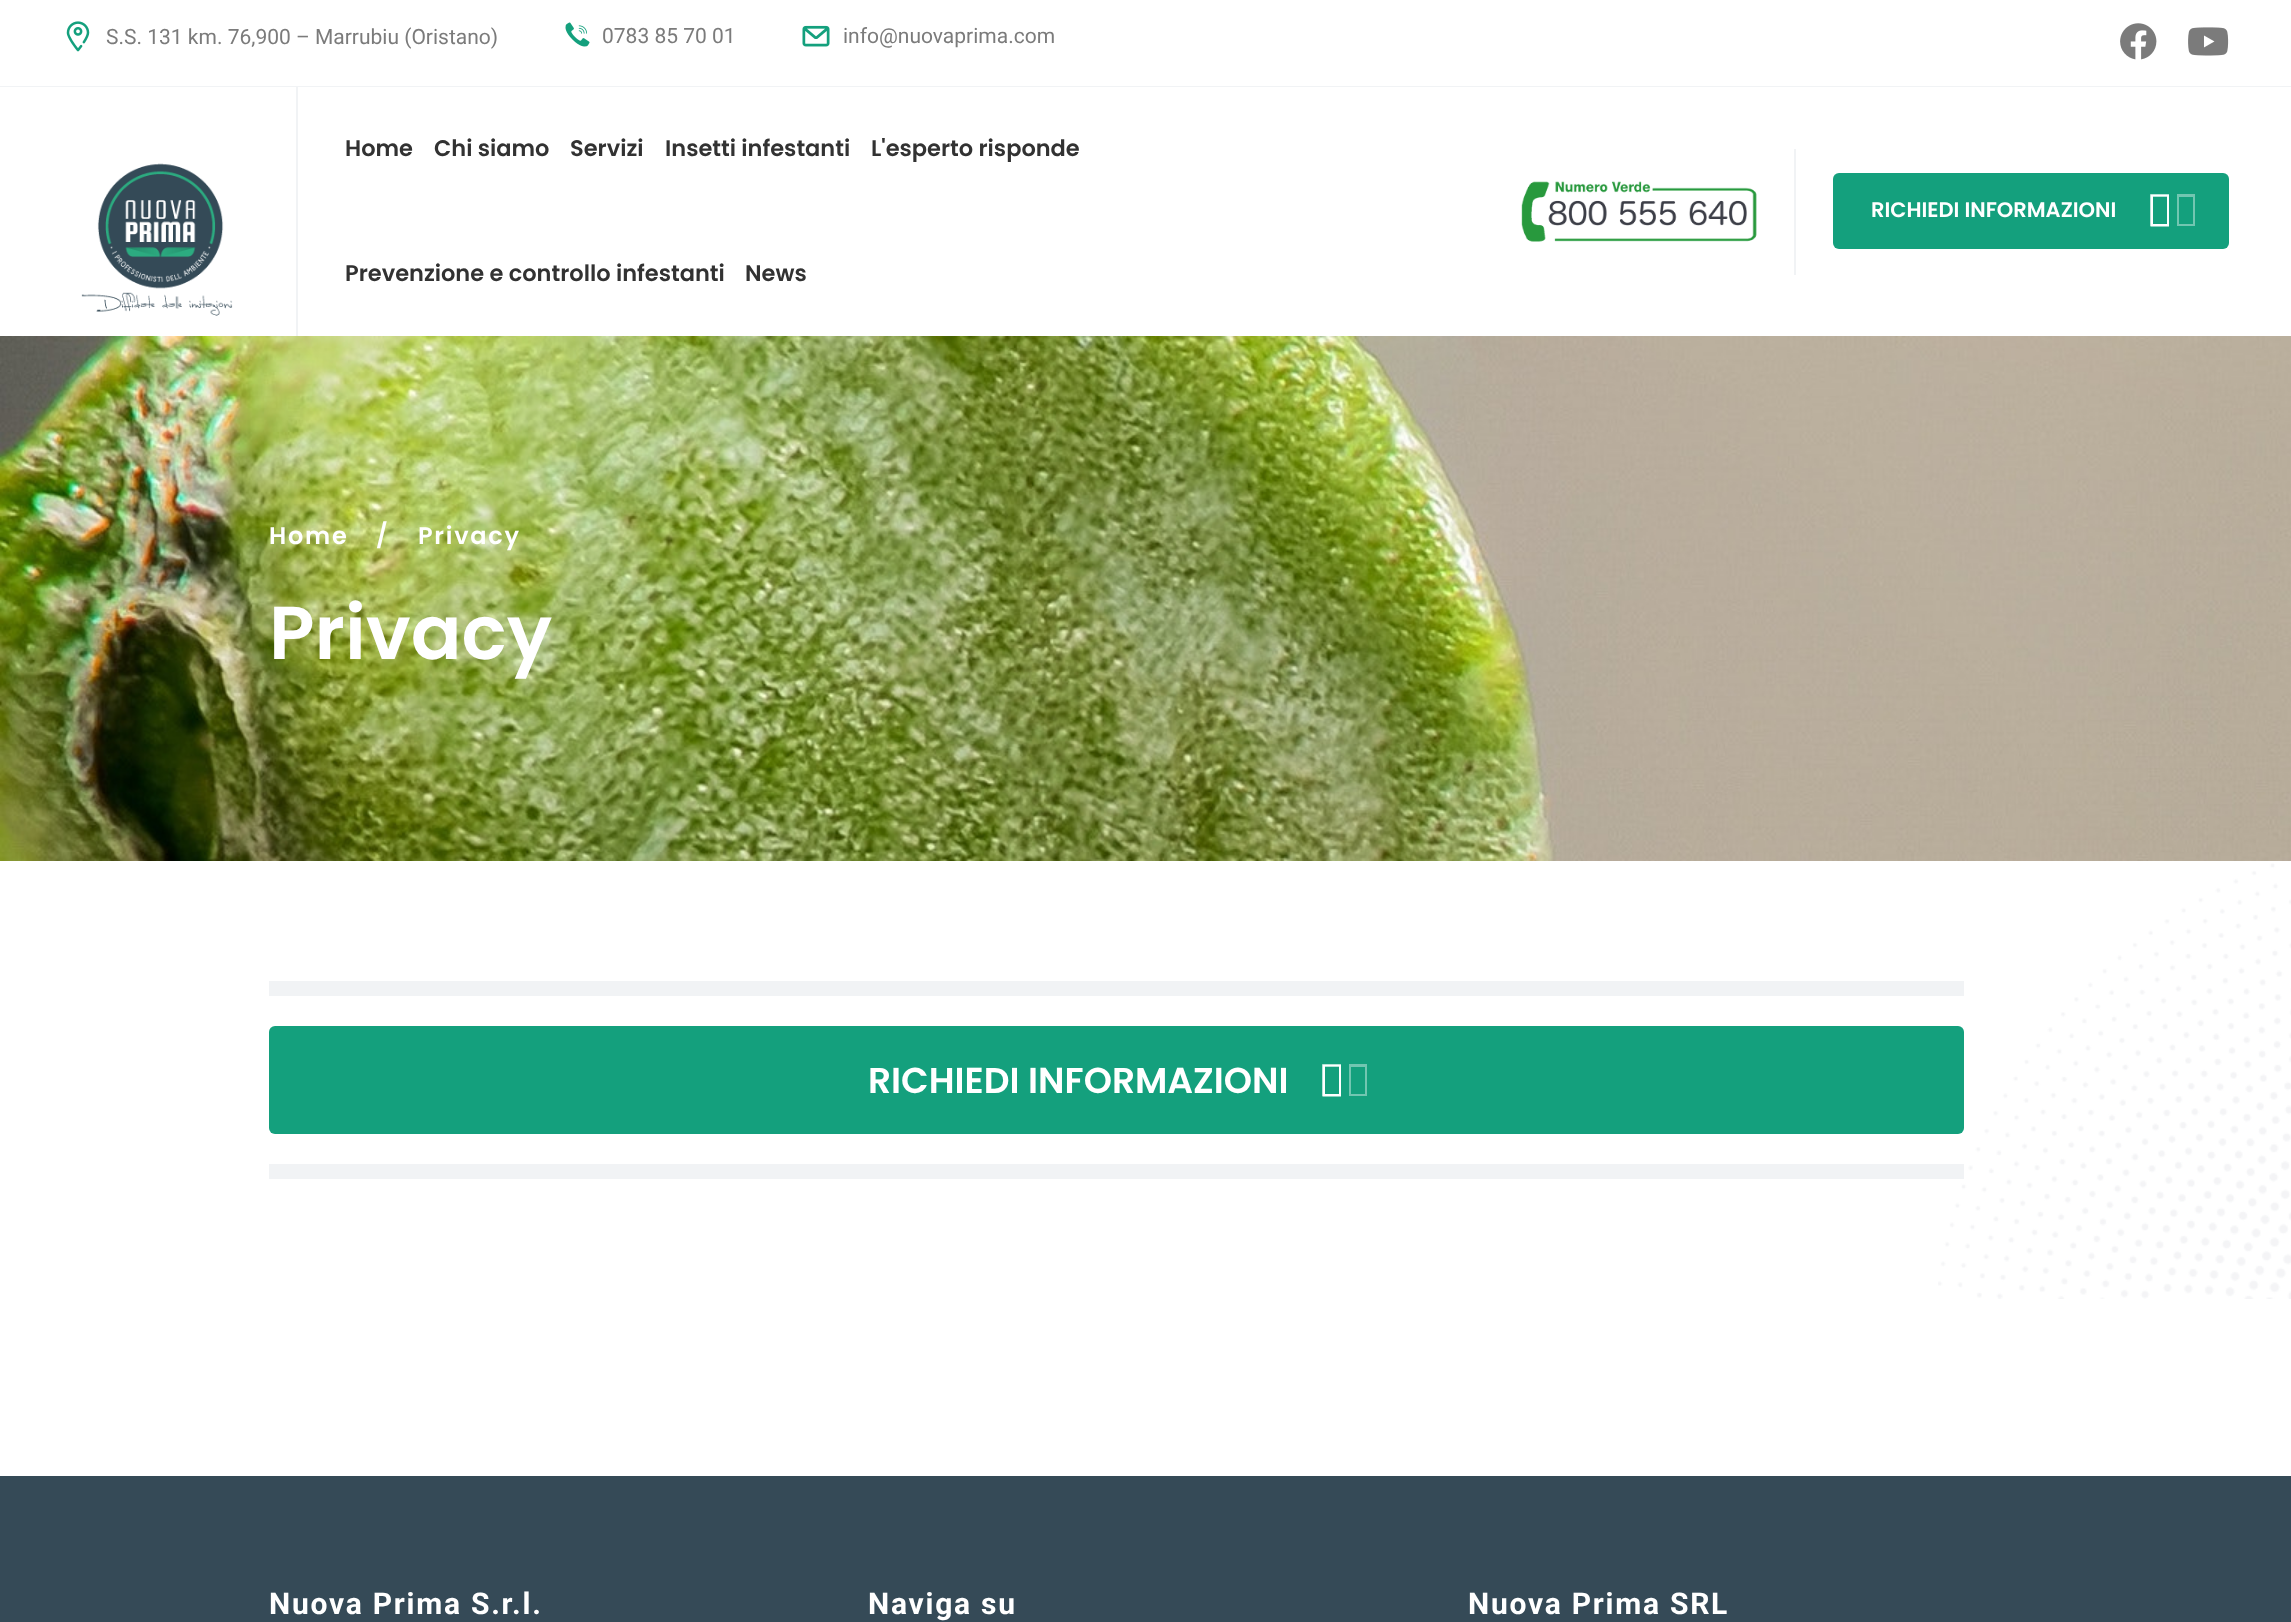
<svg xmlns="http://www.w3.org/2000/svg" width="2291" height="1622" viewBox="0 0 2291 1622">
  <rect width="100%" height="100%" fill="rgb(255,255,255)"/>
  <rect x="0" y="86" width="2291" height="1" fill="rgb(241,243,245)"/>
  <image x="66" y="21" width="24" height="31" href="pic1.png"/>
  <text x="106" y="44" font-family="Roboto" font-size="21" fill="rgb(123,123,123)">S.S. 131 km. 76,900 – Marrubiu (Oristano)</text>
  <image x="565" y="22" width="25" height="25" href="pic2.png"/>
  <text x="602" y="43" font-family="Roboto" font-size="21" fill="rgb(123,123,123)">0783 85 70 01</text>
  <image x="802" y="25" width="28" height="22" href="pic3.png"/>
  <text x="843" y="43" font-family="Roboto" font-size="21" fill="rgb(123,123,123)">info@nuovaprima.com</text>
  <image x="2120" y="23" width="37" height="37" href="pic4.png"/>
  <image x="2188" y="27" width="41" height="29" href="pic5.png"/>
  <image x="81" y="163" width="152" height="153" href="pic6.png"/>
  <rect x="296" y="87" width="2" height="249" fill="rgb(241,243,245)"/>
  <g font-family="Poppins" font-size="22.5" font-weight="600" fill="rgb(50,50,50)">
    <text x="345" y="156">Home</text>
    <text x="434" y="156">Chi siamo</text>
    <text x="570" y="156">Servizi</text>
    <text x="665" y="156">Insetti infestanti</text>
    <text x="871" y="156">L'esperto risponde</text>
    <text x="345" y="281">Prevenzione e controllo infestanti</text>
    <text x="745" y="281">News</text>
  </g>
  <image x="1521" y="181" width="236" height="61" href="pic7.png"/>
  <rect x="1794" y="149" width="2" height="126" fill="rgb(241,243,245)"/>
  <rect x="1833" y="173" width="396" height="76" rx="6" fill="rgb(20,160,125)"/>
  <text x="1871" y="217" font-family="Poppins" font-size="21" font-weight="600" fill="rgb(255,255,255)">RICHIEDI INFORMAZIONI</text>
  <path d="M2150.5 226.5V194.5H2169V226.5ZM2153 224H2167V196.5H2153Z" fill="rgb(255,255,255)"/>
  <path d="M2150 226V194H2169V226ZM2153 224H2167V197H2153ZM2177 226V194H2195V226ZM2179 224H2193V197H2179Z" fill="rgba(255,255,255,0.4)"/>
  <image x="0" y="336" width="2291" height="525" href="pic8.png"/>
  <g font-family="Poppins" font-size="24" font-weight="600" letter-spacing="1.75" fill="rgb(255,255,255)">
    <text x="269" y="544">Home</text>
    <text x="376" y="544">/</text>
    <text x="418" y="544">Privacy</text>
  </g>
  <text x="269" y="659" font-family="Poppins" font-size="75" font-weight="600" fill="rgb(255,255,255)">Privacy</text>
  <image x="1938" y="863" width="353" height="436" href="pic9.png"/>
  <rect x="269" y="981" width="1695" height="15" fill="rgb(241,243,245)"/>
  <rect x="269" y="1026" width="1695" height="108" rx="6" fill="rgb(20,160,125)"/>
  <text x="868" y="1093" font-family="Poppins" font-size="36" font-weight="600" fill="rgb(255,255,255)">RICHIEDI INFORMAZIONI</text>
  <path d="M1322.5 1096.5V1064.5H1341V1096.5ZM1325 1094H1339V1066.5H1325Z" fill="rgb(255,255,255)"/>
  <path d="M1322 1096V1064H1341V1096ZM1325 1094H1339V1067H1325ZM1349 1096V1064H1367V1096ZM1351 1094H1365V1067H1351Z" fill="rgba(255,255,255,0.4)"/>
  <rect x="269" y="1164" width="1695" height="15" fill="rgb(241,243,245)"/>
  <rect x="0" y="1476" width="2291" height="146" fill="rgb(53,74,87)"/>
  <g font-family="Roboto" font-size="30" font-weight="bold" letter-spacing="1.75" fill="rgb(255,255,255)">
    <text x="269" y="1614">Nuova Prima S.r.l.</text>
    <text x="868" y="1614">Naviga su</text>
    <text x="1468" y="1614">Nuova Prima SRL</text>
  </g>
</svg>
